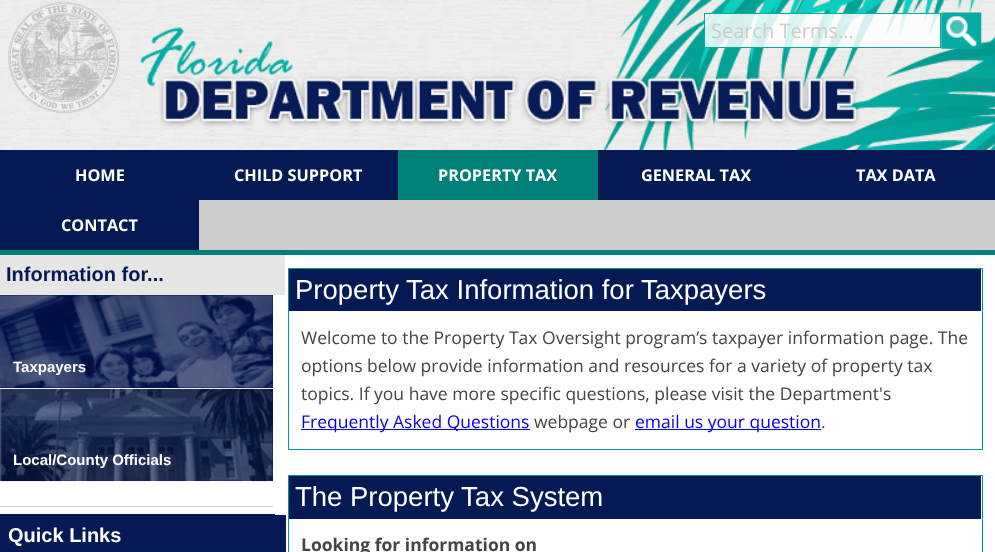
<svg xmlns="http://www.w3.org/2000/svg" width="995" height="552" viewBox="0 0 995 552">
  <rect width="100%" height="100%" fill="rgb(204,204,204)"/>
  <image x="0" y="0" width="995" height="150" href="pic1.png"/>
  <image x="8" y="1" width="112" height="113" href="pic2.png"/>
  <image x="140" y="0" width="855" height="150" href="pic3.png"/>
  <rect x="704" y="13" width="237" height="35" fill="rgba(255,255,255,0.84)"/>
  <rect x="704.5" y="13.5" width="236" height="34" fill="none" stroke="rgba(0,172,161,0.99)"/>
  <text x="711" y="38" font-family="Open Sans" font-size="20" fill="rgb(204,204,204)">Search Terms...</text>
  <image x="941" y="12" width="41" height="37" href="pic4.png"/>
  <rect x="0" y="150" width="398" height="50" fill="rgb(5,26,84)"/>
  <g font-family="Open Sans" font-size="16.25" font-weight="bold" fill="rgb(255,255,255)">
    <text x="75" y="181">HOME</text>
    <text x="234" y="181">CHILD SUPPORT</text>
  </g>
  <rect x="398" y="150" width="200" height="50" fill="rgb(0,128,120)"/>
  <text x="438" y="181" font-family="Open Sans" font-size="16.25" font-weight="bold" fill="rgb(255,255,255)">PROPERTY TAX</text>
  <rect x="598" y="150" width="397" height="50" fill="rgb(5,26,84)"/>
  <g font-family="Open Sans" font-size="16.25" font-weight="bold" fill="rgb(255,255,255)">
    <text x="641" y="181">GENERAL TAX</text>
    <text x="856" y="181">TAX DATA</text>
  </g>
  <rect x="0" y="200" width="199" height="50" fill="rgb(5,26,84)"/>
  <text x="61" y="231" font-family="Open Sans" font-size="16.25" font-weight="bold" fill="rgb(255,255,255)">CONTACT</text>
  <rect x="0" y="250" width="995" height="5" fill="rgb(0,128,120)"/>
  <rect x="0" y="255" width="995" height="297" fill="rgb(255,255,255)"/>
  <rect x="0" y="506" width="273" height="1" fill="rgb(204,204,204)"/>
  <rect x="0" y="255" width="285" height="40" fill="rgb(230,230,230)"/>
  <text x="6" y="281" font-family="Liberation Sans" font-size="20" font-weight="bold" fill="rgb(5,26,84)">Information for...</text>
  <rect x="0" y="295" width="273" height="93" fill="rgb(5,26,84)"/>
  <image x="0" y="295" width="273" height="93" href="pic5.png"/>
  <text x="13" y="372" font-family="Liberation Sans" font-size="15" font-weight="bold" fill="rgb(255,255,255)">Taxpayers</text>
  <rect x="0" y="389" width="273" height="92" fill="rgb(5,26,84)"/>
  <image x="0" y="388" width="273" height="94" href="pic6.png"/>
  <text x="13" y="465" font-family="Liberation Sans" font-size="15" font-weight="bold" fill="rgb(255,255,255)">Local/County Officials</text>
  <rect x="0.5" y="514.5" width="274" height="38" fill="none" stroke="rgb(5,26,84)"/>
  <rect x="1" y="515" width="285" height="37" fill="rgb(5,26,84)"/>
  <text x="8" y="542" font-family="Liberation Sans" font-size="20" font-weight="bold" fill="rgb(255,255,255)">Quick Links</text>
  <rect x="288.5" y="268.5" width="694" height="181" fill="none" stroke="rgb(0,153,153)"/>
  <rect x="289" y="269" width="692" height="42" fill="rgb(5,26,84)"/>
  <text x="295" y="299" font-family="Liberation Sans" font-size="27.5" fill="rgb(255,255,255)">Property Tax Information for Taxpayers</text>
  <g font-family="Open Sans" font-size="17.5" fill="rgb(68,68,68)">
    <text>
      <tspan x="301" y="344">Welcome to the Property Tax Oversight program’s taxpayer information page. The</tspan>
      <tspan x="301" y="372">options below provide information and resources for a variety of property tax</tspan>
      <tspan x="301" y="400">topics. If you have more specific questions, please visit the Department's</tspan>
    </text>
  </g>
  <rect x="301" y="429" width="229" height="1" fill="rgb(0,0,238)"/>
  <text x="301" y="428" font-family="Open Sans" font-size="17.5" fill="rgb(0,0,238)">Frequently Asked Questions</text>
  <text x="534" y="428" font-family="Open Sans" font-size="17.5" fill="rgb(68,68,68)">webpage or</text>
  <rect x="635" y="429" width="186" height="1" fill="rgb(0,0,238)"/>
  <text x="635" y="428" font-family="Open Sans" font-size="17.5" fill="rgb(0,0,238)">email us your question</text>
  <text x="821" y="428" font-family="Open Sans" font-size="17.5" fill="rgb(68,68,68)">.</text>
  <rect x="288.5" y="475.5" width="694" height="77" fill="none" stroke="rgb(0,153,153)"/>
  <rect x="289" y="476" width="692" height="43" fill="rgb(5,26,84)"/>
  <text x="295" y="506" font-family="Liberation Sans" font-size="27.5" fill="rgb(255,255,255)">The Property Tax System</text>
  <text x="301" y="551" font-family="Open Sans" font-size="17.5" font-weight="bold" fill="rgb(68,68,68)">Looking for information on</text>
</svg>
